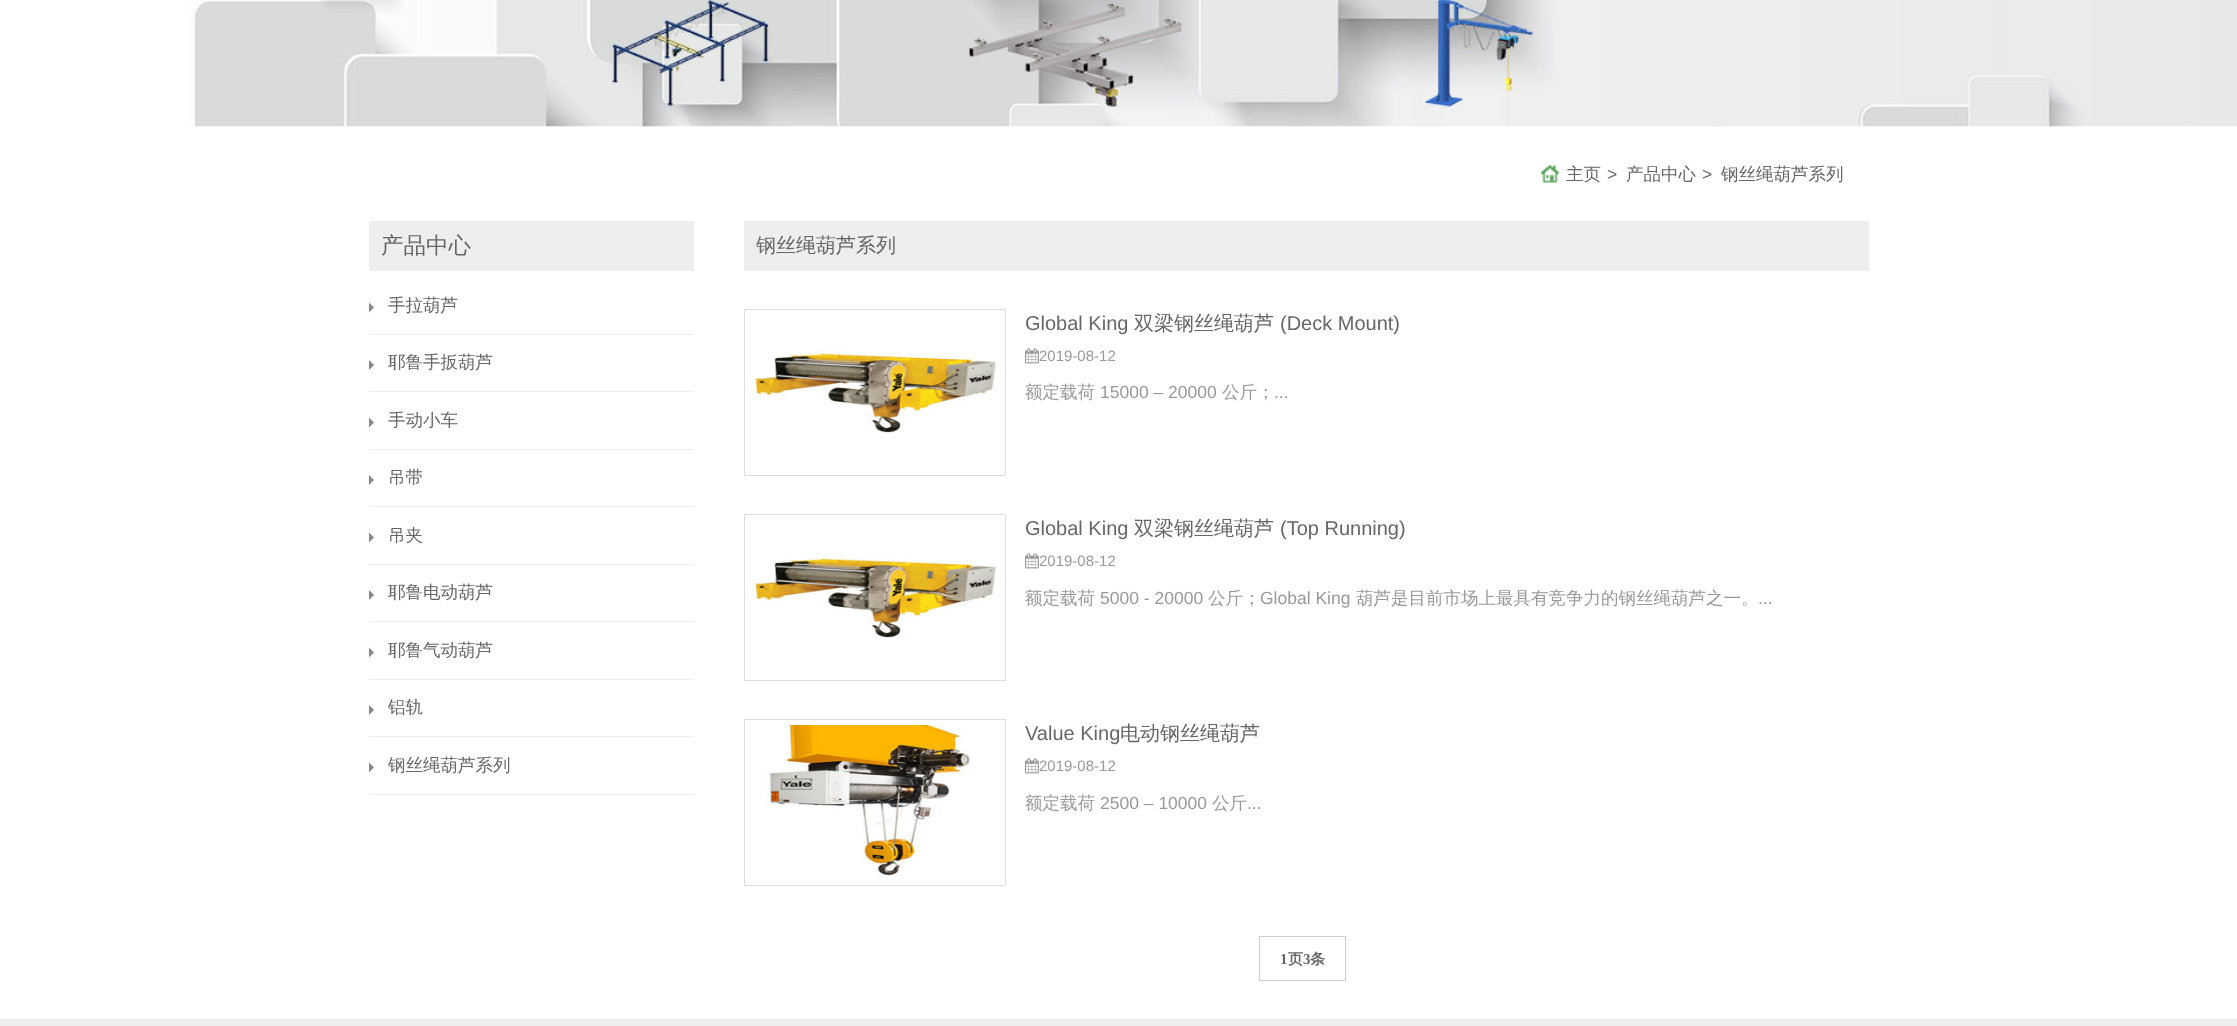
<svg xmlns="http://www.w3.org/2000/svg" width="2237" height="1026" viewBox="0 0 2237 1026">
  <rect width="100%" height="100%" fill="rgb(255,255,255)"/>
  <image x="191" y="0" width="2046" height="127" href="pic1.png"/>
  <image x="1541" y="165" width="18" height="18" href="pic2.png"/>
  <text x="1566" y="180" font-family="WenQuanYi Zen Hei" font-size="17.5" font-weight="500" fill="rgb(102,102,102)">主页</text>
  <text x="1607" y="180" font-family="Liberation Sans" font-size="17.5" fill="rgb(102,102,102)">&gt;</text>
  <text x="1626" y="180" font-family="WenQuanYi Zen Hei" font-size="17.5" font-weight="500" fill="rgb(102,102,102)">产品中心</text>
  <text x="1702" y="180" font-family="Liberation Sans" font-size="17.5" fill="rgb(102,102,102)">&gt;</text>
  <text x="1721" y="180" font-family="WenQuanYi Zen Hei" font-size="17.5" font-weight="500" fill="rgb(102,102,102)">钢丝绳葫芦系列</text>
  <rect x="369" y="221" width="325" height="50" fill="rgb(238,238,238)"/>
  <text x="381" y="253" font-family="WenQuanYi Zen Hei" font-size="22.5" font-weight="500" fill="rgb(102,102,102)">产品中心</text>
  <rect x="369" y="334" width="325" height="1" fill="rgb(238,238,238)"/>
  <path d="M369 312.5V302.5L374 307.5Z" fill="rgb(136,136,136)"/>
  <text x="388" y="311" font-family="WenQuanYi Zen Hei" font-size="17.5" font-weight="500" fill="rgb(102,102,102)">手拉葫芦</text>
  <rect x="369" y="391" width="325" height="1" fill="rgb(238,238,238)"/>
  <path d="M369 370V360L374 365Z" fill="rgb(136,136,136)"/>
  <text x="388" y="368" font-family="WenQuanYi Zen Hei" font-size="17.5" font-weight="500" fill="rgb(102,102,102)">耶鲁手扳葫芦</text>
  <rect x="369" y="449" width="325" height="1" fill="rgb(238,238,238)"/>
  <path d="M369 427.5V417.5L374 422.5Z" fill="rgb(136,136,136)"/>
  <text x="388" y="426" font-family="WenQuanYi Zen Hei" font-size="17.5" font-weight="500" fill="rgb(102,102,102)">手动小车</text>
  <rect x="369" y="506" width="325" height="1" fill="rgb(238,238,238)"/>
  <path d="M369 485V475L374 480Z" fill="rgb(136,136,136)"/>
  <text x="388" y="483" font-family="WenQuanYi Zen Hei" font-size="17.5" font-weight="500" fill="rgb(102,102,102)">吊带</text>
  <rect x="369" y="564" width="325" height="1" fill="rgb(238,238,238)"/>
  <path d="M369 542.5V532.5L374 537.5Z" fill="rgb(136,136,136)"/>
  <text x="388" y="541" font-family="WenQuanYi Zen Hei" font-size="17.5" font-weight="500" fill="rgb(102,102,102)">吊夹</text>
  <rect x="369" y="621" width="325" height="1" fill="rgb(238,238,238)"/>
  <path d="M369 600V590L374 595Z" fill="rgb(136,136,136)"/>
  <text x="388" y="598" font-family="WenQuanYi Zen Hei" font-size="17.5" font-weight="500" fill="rgb(102,102,102)">耶鲁电动葫芦</text>
  <rect x="369" y="679" width="325" height="1" fill="rgb(238,238,238)"/>
  <path d="M369 657.5V647.5L374 652.5Z" fill="rgb(136,136,136)"/>
  <text x="388" y="656" font-family="WenQuanYi Zen Hei" font-size="17.5" font-weight="500" fill="rgb(102,102,102)">耶鲁气动葫芦</text>
  <rect x="369" y="736" width="325" height="1" fill="rgb(238,238,238)"/>
  <path d="M369 715V705L374 710Z" fill="rgb(136,136,136)"/>
  <text x="388" y="713" font-family="WenQuanYi Zen Hei" font-size="17.5" font-weight="500" fill="rgb(102,102,102)">铝轨</text>
  <rect x="369" y="794" width="325" height="1" fill="rgb(238,238,238)"/>
  <path d="M369 772.5V762.5L374 767.5Z" fill="rgb(136,136,136)"/>
  <text x="388" y="771" font-family="WenQuanYi Zen Hei" font-size="17.5" font-weight="500" fill="rgb(102,102,102)">钢丝绳葫芦系列</text>
  <rect x="744" y="221" width="1125" height="50" fill="rgb(238,238,238)"/>
  <text x="756" y="252" font-family="WenQuanYi Zen Hei" font-size="20" font-weight="500" fill="rgb(102,102,102)">钢丝绳葫芦系列</text>
  <rect x="744.5" y="309.5" width="261" height="166" fill="none" stroke="rgb(222,222,222)"/>
  <image x="750" y="350" width="247" height="83" href="pic3.png"/>
  <text x="1025" y="330" font-family="Liberation Sans" font-size="20" fill="rgb(102,102,102)">Global King</text>
  <text x="1134" y="330" font-family="WenQuanYi Zen Hei" font-size="20" font-weight="500" fill="rgb(102,102,102)">双梁钢丝绳葫芦</text>
  <text x="1280" y="330" font-family="Liberation Sans" font-size="20" fill="rgb(102,102,102)">(Deck Mount)</text>
  <image x="1025" y="348" width="14" height="16" href="pic4.png"/>
  <text x="1039" y="361" font-family="Liberation Sans" font-size="15" fill="rgb(153,153,153)">2019-08-12</text>
  <text x="1025" y="398" font-family="WenQuanYi Zen Hei" font-size="17.5" font-weight="500" fill="rgb(153,153,153)">额定载荷</text>
  <text x="1100" y="398" font-family="Liberation Sans" font-size="17.5" fill="rgb(153,153,153)">15000 – 20000</text>
  <text x="1222" y="398" font-family="WenQuanYi Zen Hei" font-size="17.5" font-weight="500" fill="rgb(153,153,153)">公斤；</text>
  <text x="1274" y="398" font-family="Liberation Sans" font-size="17.5" fill="rgb(153,153,153)">...</text>
  <rect x="744.5" y="514.5" width="261" height="166" fill="none" stroke="rgb(222,222,222)"/>
  <image x="750" y="555" width="247" height="83" href="pic5.png"/>
  <text x="1025" y="535" font-family="Liberation Sans" font-size="20" fill="rgb(102,102,102)">Global King</text>
  <text x="1134" y="535" font-family="WenQuanYi Zen Hei" font-size="20" font-weight="500" fill="rgb(102,102,102)">双梁钢丝绳葫芦</text>
  <text x="1280" y="535" font-family="Liberation Sans" font-size="20" fill="rgb(102,102,102)">(Top Running)</text>
  <image x="1025" y="553" width="14" height="16" href="pic4.png"/>
  <text x="1039" y="566" font-family="Liberation Sans" font-size="15" fill="rgb(153,153,153)">2019-08-12</text>
  <text x="1025" y="604" font-family="WenQuanYi Zen Hei" font-size="17.5" font-weight="500" fill="rgb(153,153,153)">额定载荷</text>
  <text x="1100" y="604" font-family="Liberation Sans" font-size="17.5" fill="rgb(153,153,153)">5000 - 20000</text>
  <text x="1208" y="604" font-family="WenQuanYi Zen Hei" font-size="17.5" font-weight="500" fill="rgb(153,153,153)">公斤；</text>
  <text x="1260" y="604" font-family="Liberation Sans" font-size="17.5" fill="rgb(153,153,153)">Global King</text>
  <text x="1356" y="604" font-family="WenQuanYi Zen Hei" font-size="17.5" font-weight="500" fill="rgb(153,153,153)">葫芦是目前市场上最具有竞争力的钢丝绳葫芦之一。</text>
  <text x="1758" y="604" font-family="Liberation Sans" font-size="17.5" fill="rgb(153,153,153)">...</text>
  <rect x="744.5" y="719.5" width="261" height="166" fill="none" stroke="rgb(222,222,222)"/>
  <image x="764" y="725" width="208" height="151" href="pic6.png"/>
  <text x="1025" y="740" font-family="Liberation Sans" font-size="20" fill="rgb(102,102,102)">Value King</text>
  <text x="1120" y="740" font-family="WenQuanYi Zen Hei" font-size="20" font-weight="500" fill="rgb(102,102,102)">电动钢丝绳葫芦</text>
  <image x="1025" y="758" width="14" height="16" href="pic4.png"/>
  <text x="1039" y="771" font-family="Liberation Sans" font-size="15" fill="rgb(153,153,153)">2019-08-12</text>
  <text x="1025" y="809" font-family="WenQuanYi Zen Hei" font-size="17.5" font-weight="500" fill="rgb(153,153,153)">额定载荷</text>
  <text x="1100" y="809" font-family="Liberation Sans" font-size="17.5" fill="rgb(153,153,153)">2500 – 10000</text>
  <text x="1212" y="809" font-family="WenQuanYi Zen Hei" font-size="17.5" font-weight="500" fill="rgb(153,153,153)">公斤</text>
  <text x="1247" y="809" font-family="Liberation Sans" font-size="17.5" fill="rgb(153,153,153)">...</text>
  <rect x="1259.5" y="936.5" width="86" height="44" fill="none" stroke="rgb(204,204,204)"/>
  <text x="1280" y="964" font-family="Liberation Serif" font-size="15" font-weight="bold" fill="rgb(102,102,102)">1</text>
  <text x="1288" y="964" font-family="WenQuanYi Zen Hei" font-size="15" font-weight="bold" fill="rgb(102,102,102)">页</text>
  <text x="1303" y="964" font-family="Liberation Serif" font-size="15" font-weight="bold" fill="rgb(102,102,102)">3</text>
  <text x="1310" y="964" font-family="WenQuanYi Zen Hei" font-size="15" font-weight="bold" fill="rgb(102,102,102)">条</text>
  <rect x="0" y="1019" width="2237" height="7" fill="rgb(238,238,238)"/>
</svg>
